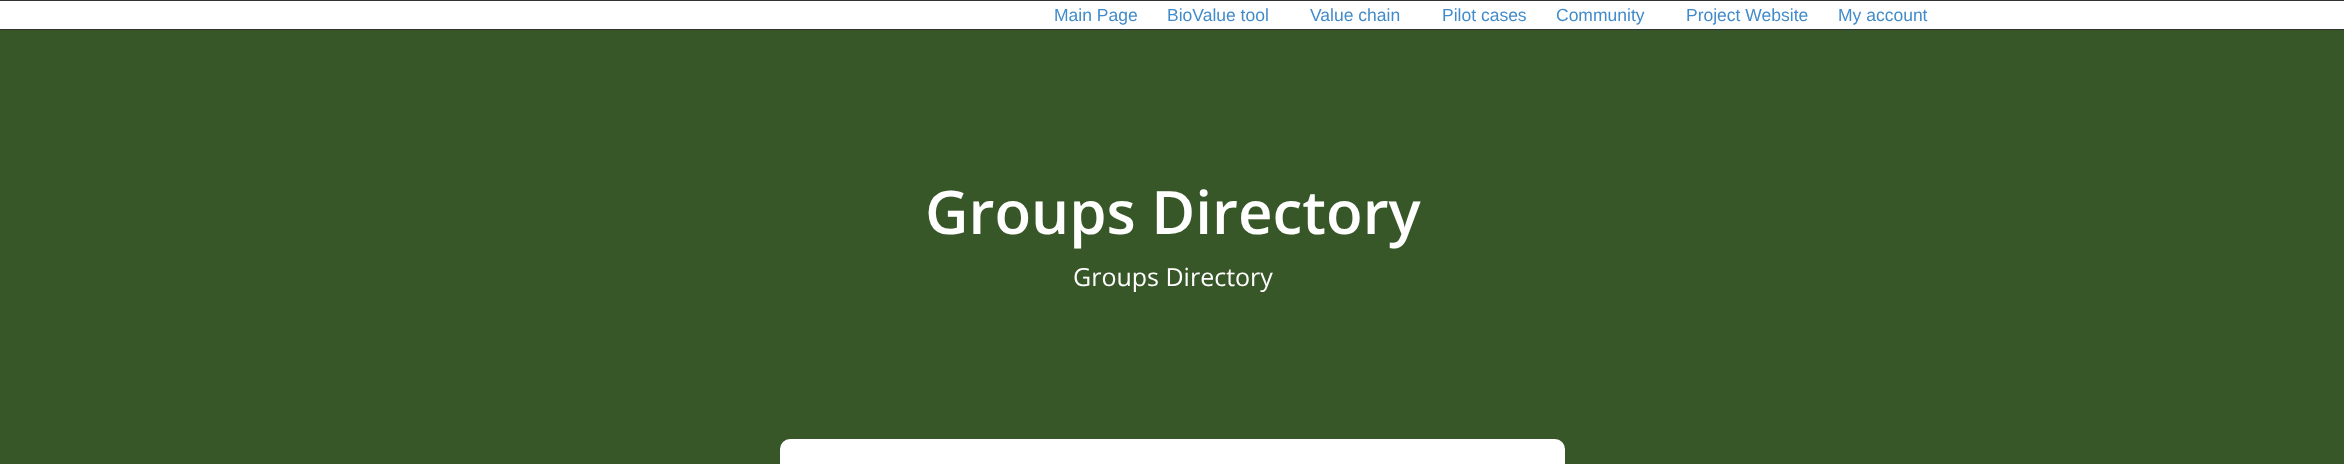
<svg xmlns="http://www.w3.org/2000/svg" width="2344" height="464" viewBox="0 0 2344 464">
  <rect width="100%" height="100%" fill="rgb(255,255,255)"/>
  <rect x="0" y="0" width="2344" height="1" fill="rgb(51,51,51)"/>
  <rect x="0" y="29" width="2344" height="1" fill="rgb(51,51,51)"/>
  <g font-family="Liberation Sans" font-size="17.5" fill="rgb(66,139,202)">
    <text x="1054" y="21">Main Page</text>
    <text x="1167" y="21">BioValue tool</text>
    <text x="1310" y="21">Value chain</text>
    <text x="1442" y="21">Pilot cases</text>
    <text x="1556" y="21">Community</text>
    <text x="1686" y="21">Project Website</text>
    <text x="1838" y="21">My account</text>
  </g>
  <rect x="0" y="30" width="2344" height="434" fill="rgb(56,87,40)"/>
  <text x="925" y="234" font-family="Open Sans" font-size="60" font-weight="600" fill="rgb(255,255,255)">Groups Directory</text>
  <text x="1073" y="286" font-family="Open Sans" font-size="25" fill="rgb(255,255,255)">Groups Directory</text>
  <rect x="780" y="439" width="785" height="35" rx="10" fill="rgb(255,255,255)"/>
</svg>
